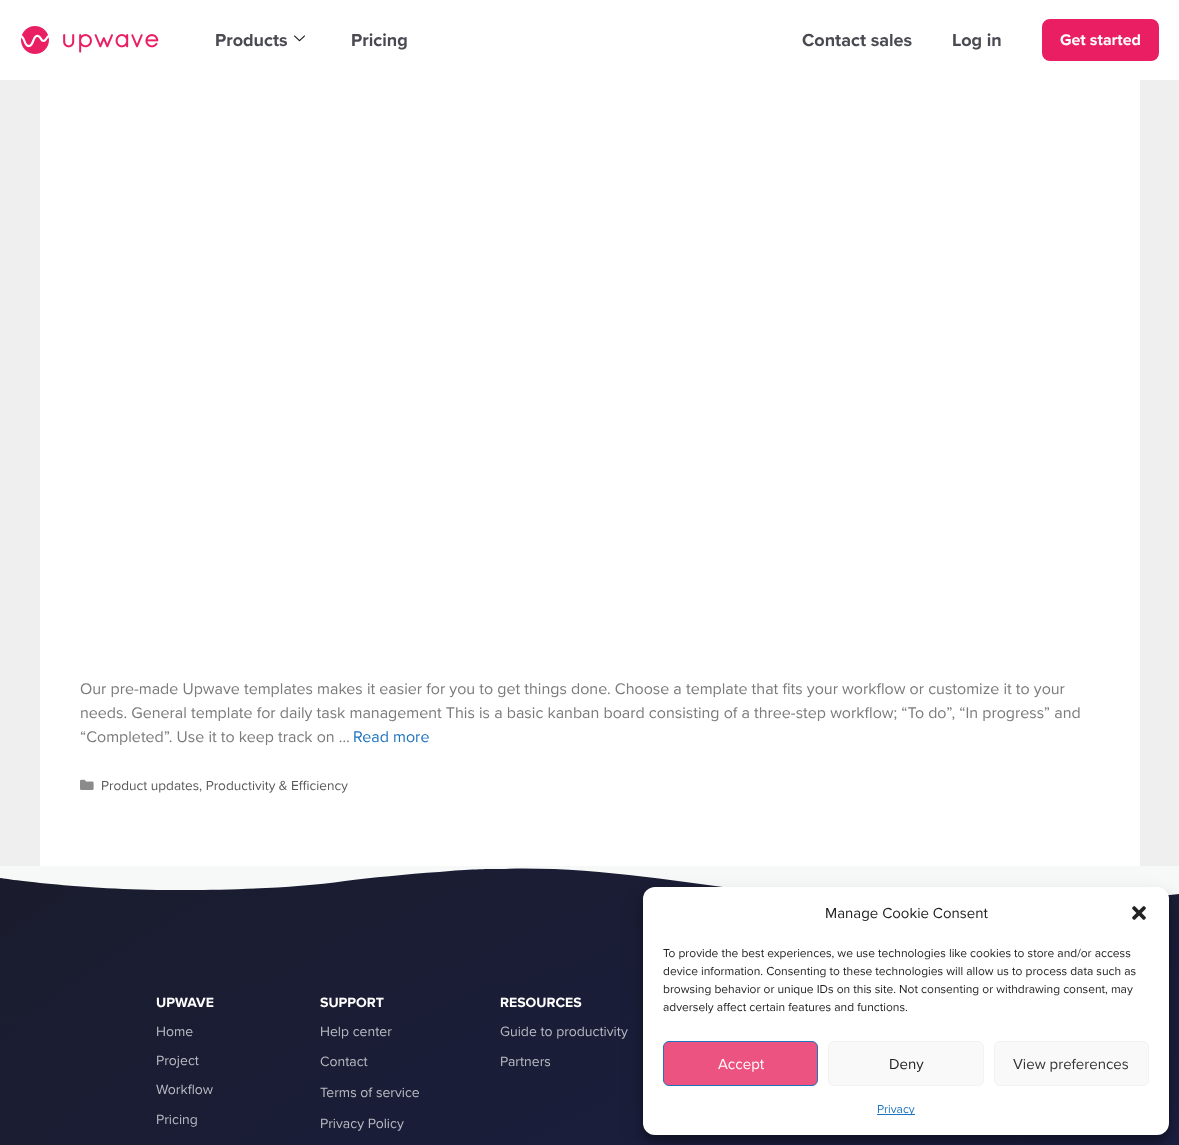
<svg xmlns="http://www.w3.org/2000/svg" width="1179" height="1145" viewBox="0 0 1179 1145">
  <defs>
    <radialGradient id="g1" gradientUnits="userSpaceOnUse" cx="0" cy="0" r="1" gradientTransform="matrix(1667 0 0 1049 1179 1609)"><stop offset="0.4" stop-color="rgb(27,30,64)"/><stop offset="1" stop-color="rgb(26,28,45)"/></radialGradient>
  </defs>
  <rect width="100%" height="100%" fill="rgb(239,239,239)"/>
  <rect x="0" y="0" width="1179" height="80" fill="rgb(255,255,255)"/>
  <image x="21" y="26" width="138" height="28" href="pic1.png"/>
  <text x="215" y="46" font-family="Proxima Nova" font-size="18" font-weight="bold" fill="rgb(74,75,82)">Products</text>
  <image x="294" y="35" width="11" height="7" href="pic2.png"/>
  <g font-family="Proxima Nova" font-size="18" font-weight="bold" fill="rgb(74,75,82)">
    <text x="351" y="46">Pricing</text>
    <text x="802" y="46">Contact sales</text>
    <text x="952" y="46">Log in</text>
  </g>
  <rect x="1043" y="20" width="115" height="40" rx="7" fill="rgb(233,30,99)" stroke="rgb(233,30,99)" stroke-width="2"/>
  <text x="1060" y="45" font-family="Proxima Nova" font-size="16" font-weight="bold" fill="rgb(255,255,255)">Get started</text>
  <rect x="40" y="80" width="1100" height="786" fill="rgb(255,255,255)"/>
  <g font-family="Proxima Nova" font-size="16" fill="rgb(122,122,122)">
    <text>
      <tspan x="80" y="694">Our pre-made Upwave templates makes it easier for you to get things done. Choose a template that fits your workflow or customize it to your</tspan>
      <tspan x="80" y="718">needs. General template for daily task management This is a basic kanban board consisting of a three-step workflow; “To do”, “In progress” and</tspan>
      <tspan x="80" y="742">“Completed”. Use it to keep track on …</tspan>
    </text>
  </g>
  <text x="353" y="742" font-family="Proxima Nova" font-size="16" fill="rgb(30,115,190)">Read more</text>
  <image x="80" y="779" width="14" height="11" href="pic3.png"/>
  <text x="101" y="790" font-family="Proxima Nova" font-size="13.6" fill="rgb(89,89,89)">Product updates, Productivity &amp; Efficiency</text>
  <rect x="0" y="868" width="1179" height="277" fill="url(#g1)"/>
  <path d="M498 869C599 865 698 886 798 896C876 904 954 907 1032 905C1082 903 1131 900 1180 894V866H0V878C0 878 85 891 187 890C233 890 296 888 345 881C370 878 407 874 439 872C471 869 486 869 498 869Z" fill="rgb(247,249,249)"/>
  <text x="156" y="1007" font-family="Proxima Nova" font-size="14" font-weight="bold" fill="rgb(255,255,255)">UPWAVE</text>
  <g font-family="Proxima Nova" font-size="14" fill="rgb(186,187,194)">
    <text x="156" y="1036">Home</text>
    <text x="156" y="1065">Project</text>
    <text x="156" y="1094">Workflow</text>
    <text x="156" y="1124">Pricing</text>
  </g>
  <text x="320" y="1007" font-family="Proxima Nova" font-size="14" font-weight="bold" fill="rgb(255,255,255)">SUPPORT</text>
  <g font-family="Proxima Nova" font-size="14" fill="rgb(186,187,194)">
    <text x="320" y="1036">Help center</text>
    <text x="320" y="1066">Contact</text>
    <text x="320" y="1097">Terms of service</text>
    <text x="320" y="1128">Privacy Policy</text>
  </g>
  <text x="500" y="1007" font-family="Proxima Nova" font-size="14" font-weight="bold" fill="rgb(255,255,255)">RESOURCES</text>
  <g font-family="Proxima Nova" font-size="14" fill="rgb(186,187,194)">
    <text x="500" y="1036">Guide to productivity</text>
    <text x="500" y="1066">Partners</text>
  </g>
  <rect x="643" y="893" width="526" height="248" rx="12" fill="rgba(0,0,0,0.23)" filter="blur(3px)"/>
  <rect x="643" y="897" width="526" height="248" rx="12" fill="rgba(0,0,0,0.19)" filter="blur(10px)"/>
  <rect x="643" y="887" width="526" height="248" rx="12" fill="rgb(255,255,255)"/>
  <text x="825" y="918" font-family="Proxima Nova" font-size="15" fill="rgb(34,34,34)">Manage Cookie Consent</text>
  <image x="1132" y="906" width="14" height="14" href="pic4.png"/>
  <g font-family="Proxima Nova" font-size="12" fill="rgb(34,34,34)">
    <text>
      <tspan x="663" y="957">To provide the best experiences, we use technologies like cookies to store and/or access</tspan>
      <tspan x="663" y="975">device information. Consenting to these technologies will allow us to process data such as</tspan>
      <tspan x="663" y="993">browsing behavior or unique IDs on this site. Not consenting or withdrawing consent, may</tspan>
      <tspan x="663" y="1011">adversely affect certain features and functions.</tspan>
    </text>
  </g>
  <rect x="663.5" y="1041.5" width="154" height="44" rx="5.5" fill="rgb(237,83,128)" stroke="rgb(30,115,190)"/>
  <text x="718" y="1069" font-family="Proxima Nova" font-size="15" fill="rgb(255,255,255)">Accept</text>
  <rect x="828.5" y="1041.5" width="155" height="44" rx="5.5" fill="rgb(249,249,249)" stroke="rgb(242,242,242)"/>
  <text x="889" y="1069" font-family="Proxima Nova" font-size="15" fill="rgb(34,34,34)">Deny</text>
  <rect x="994.5" y="1041.5" width="154" height="44" rx="5.5" fill="rgb(249,249,249)" stroke="rgb(242,242,242)"/>
  <text x="1013" y="1069" font-family="Proxima Nova" font-size="15" fill="rgb(51,51,51)">View preferences</text>
  <rect x="877" y="1114" width="38" height="1" fill="rgb(30,115,190)"/>
  <text x="877" y="1113" font-family="Proxima Nova" font-size="12" fill="rgb(30,115,190)">Privacy</text>
</svg>
